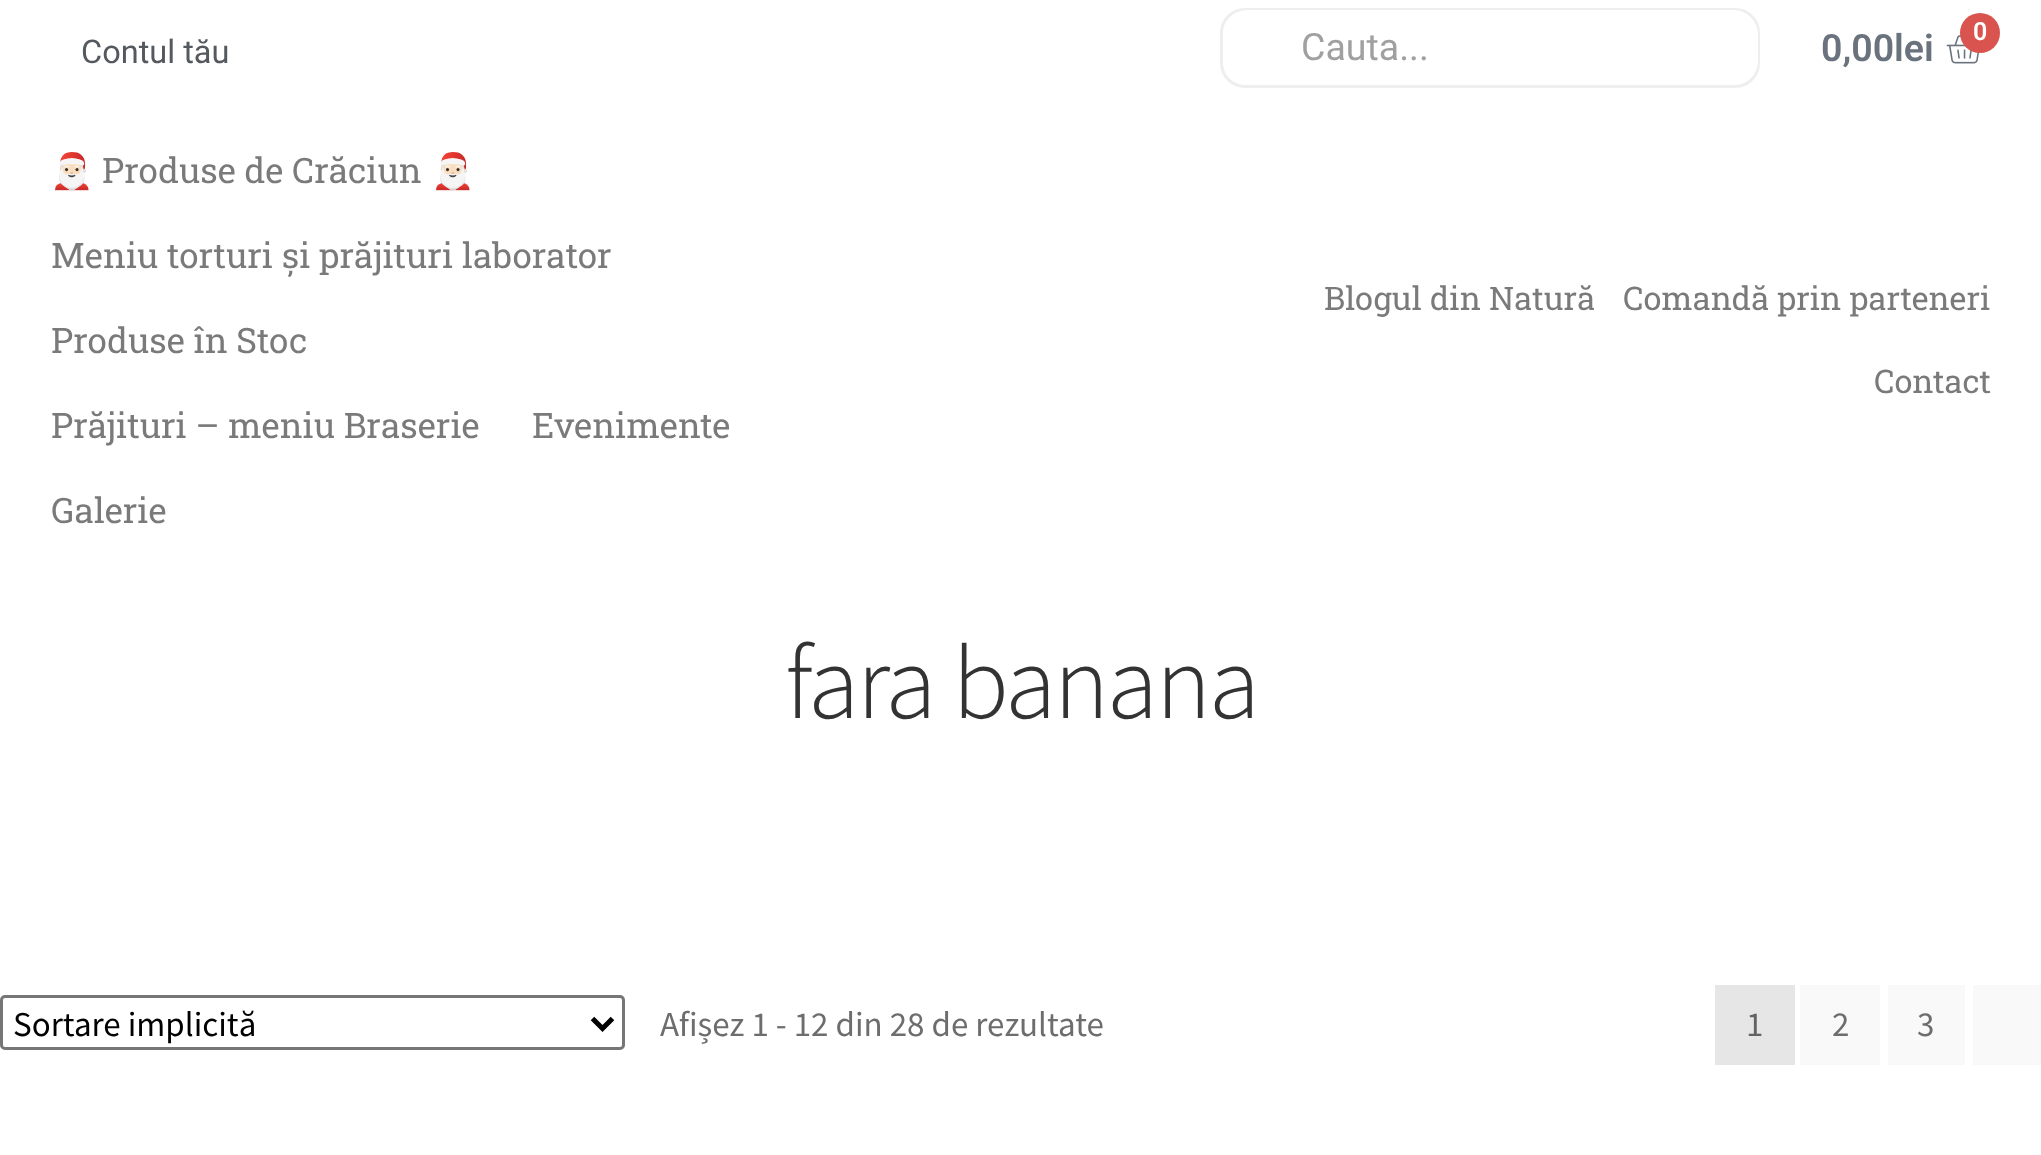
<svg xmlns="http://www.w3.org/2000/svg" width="2041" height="1155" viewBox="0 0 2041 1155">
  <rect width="100%" height="100%" fill="rgb(255,255,255)"/>
  <text x="81" y="63" font-family="Roboto" font-size="32.5" fill="rgb(84,89,95)">Contul tău</text>
  <rect x="1221.5" y="9.5" width="537" height="77" rx="23.5" fill="none" stroke="rgb(238,238,238)" stroke-width="3"/>
  <path d="M1248 10H1275V85H1248C1234 85 1223 74 1223 60V35C1223 21 1234 10 1248 10Z" fill="rgb(255,255,255)"/>
  <path d="M1275 10H1733C1747 10 1758 21 1758 35V60C1758 74 1747 85 1733 85H1275Z" fill="rgb(255,255,255)"/>
  <text x="1301" y="60" font-family="Roboto" font-size="37.5" fill="rgb(160,160,160)">Cauta...</text>
  <text x="1821" y="61" font-family="Roboto" font-size="37.5" font-weight="600" fill="rgb(105,114,125)">0,00lei</text>
  <image x="1946" y="35" width="34" height="29" href="pic1.png"/>
  <circle cx="1980" cy="33" r="20" fill="rgb(217,83,79)"/>
  <text x="1973" y="40" font-family="Roboto" font-size="25" font-weight="600" fill="rgb(255,255,255)">0</text>
  <text x="50" y="183" font-family="Noto Color Emoji" font-size="35" fill="rgb(122,122,122)">🎅🏻</text>
  <text x="102" y="183" font-family="Roboto Slab" font-size="35" fill="rgb(122,122,122)">Produse de Crăciun</text>
  <text x="431" y="183" font-family="Noto Color Emoji" font-size="35" fill="rgb(122,122,122)">🎅🏻</text>
  <g font-family="Roboto Slab" font-size="35" fill="rgb(122,122,122)">
    <text x="51" y="268">Meniu torturi și prăjituri laborator</text>
    <text x="51" y="353">Produse în Stoc</text>
    <text x="51" y="438">Prăjituri – meniu Braserie</text>
    <text x="532" y="438">Evenimente</text>
    <text x="51" y="523">Galerie</text>
  </g>
  <g font-family="Roboto Slab" font-size="32.5" fill="rgb(122,122,122)">
    <text x="1324" y="310">Blogul din Natură</text>
    <text x="1623" y="310">Comandă prin parteneri</text>
    <text x="1874" y="393">Contact</text>
  </g>
  <text x="785" y="718" font-family="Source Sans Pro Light" font-size="104.5" font-weight="300" letter-spacing="-2.5" fill="rgb(51,51,51)">fara banana</text>
  <rect x="1.5" y="996.5" width="622" height="52" rx="3.5" fill="none" stroke="rgb(118,118,118)" stroke-width="3"/>
  <path d="M592.5 1018.5L602.5 1028.5L612.5 1018.5" fill="none" stroke="rgb(0,0,0)" stroke-width="5"/>
  <text x="13" y="1036" font-family="Source Sans Pro" font-size="35" fill="rgb(0,0,0)">Sortare implicită</text>
  <text x="660" y="1036" font-family="Source Sans Pro" font-size="35" fill="rgb(109,109,109)">Afișez 1 - 12 din 28 de rezultate</text>
  <rect x="1715" y="985" width="80" height="80" fill="rgb(230,230,230)"/>
  <text x="1746" y="1036" font-family="Source Sans Pro" font-size="35" fill="rgb(99,99,99)">1</text>
  <rect x="1800" y="985" width="80" height="80" fill="rgb(249,249,249)"/>
  <text x="1832" y="1036" font-family="Source Sans Pro" font-size="35" fill="rgb(109,109,109)">2</text>
  <rect x="1888" y="985" width="77" height="80" fill="rgb(249,249,249)"/>
  <text x="1917" y="1036" font-family="Source Sans Pro" font-size="35" fill="rgb(109,109,109)">3</text>
  <rect x="1973" y="985" width="68" height="80" fill="rgb(249,249,249)"/>
</svg>
